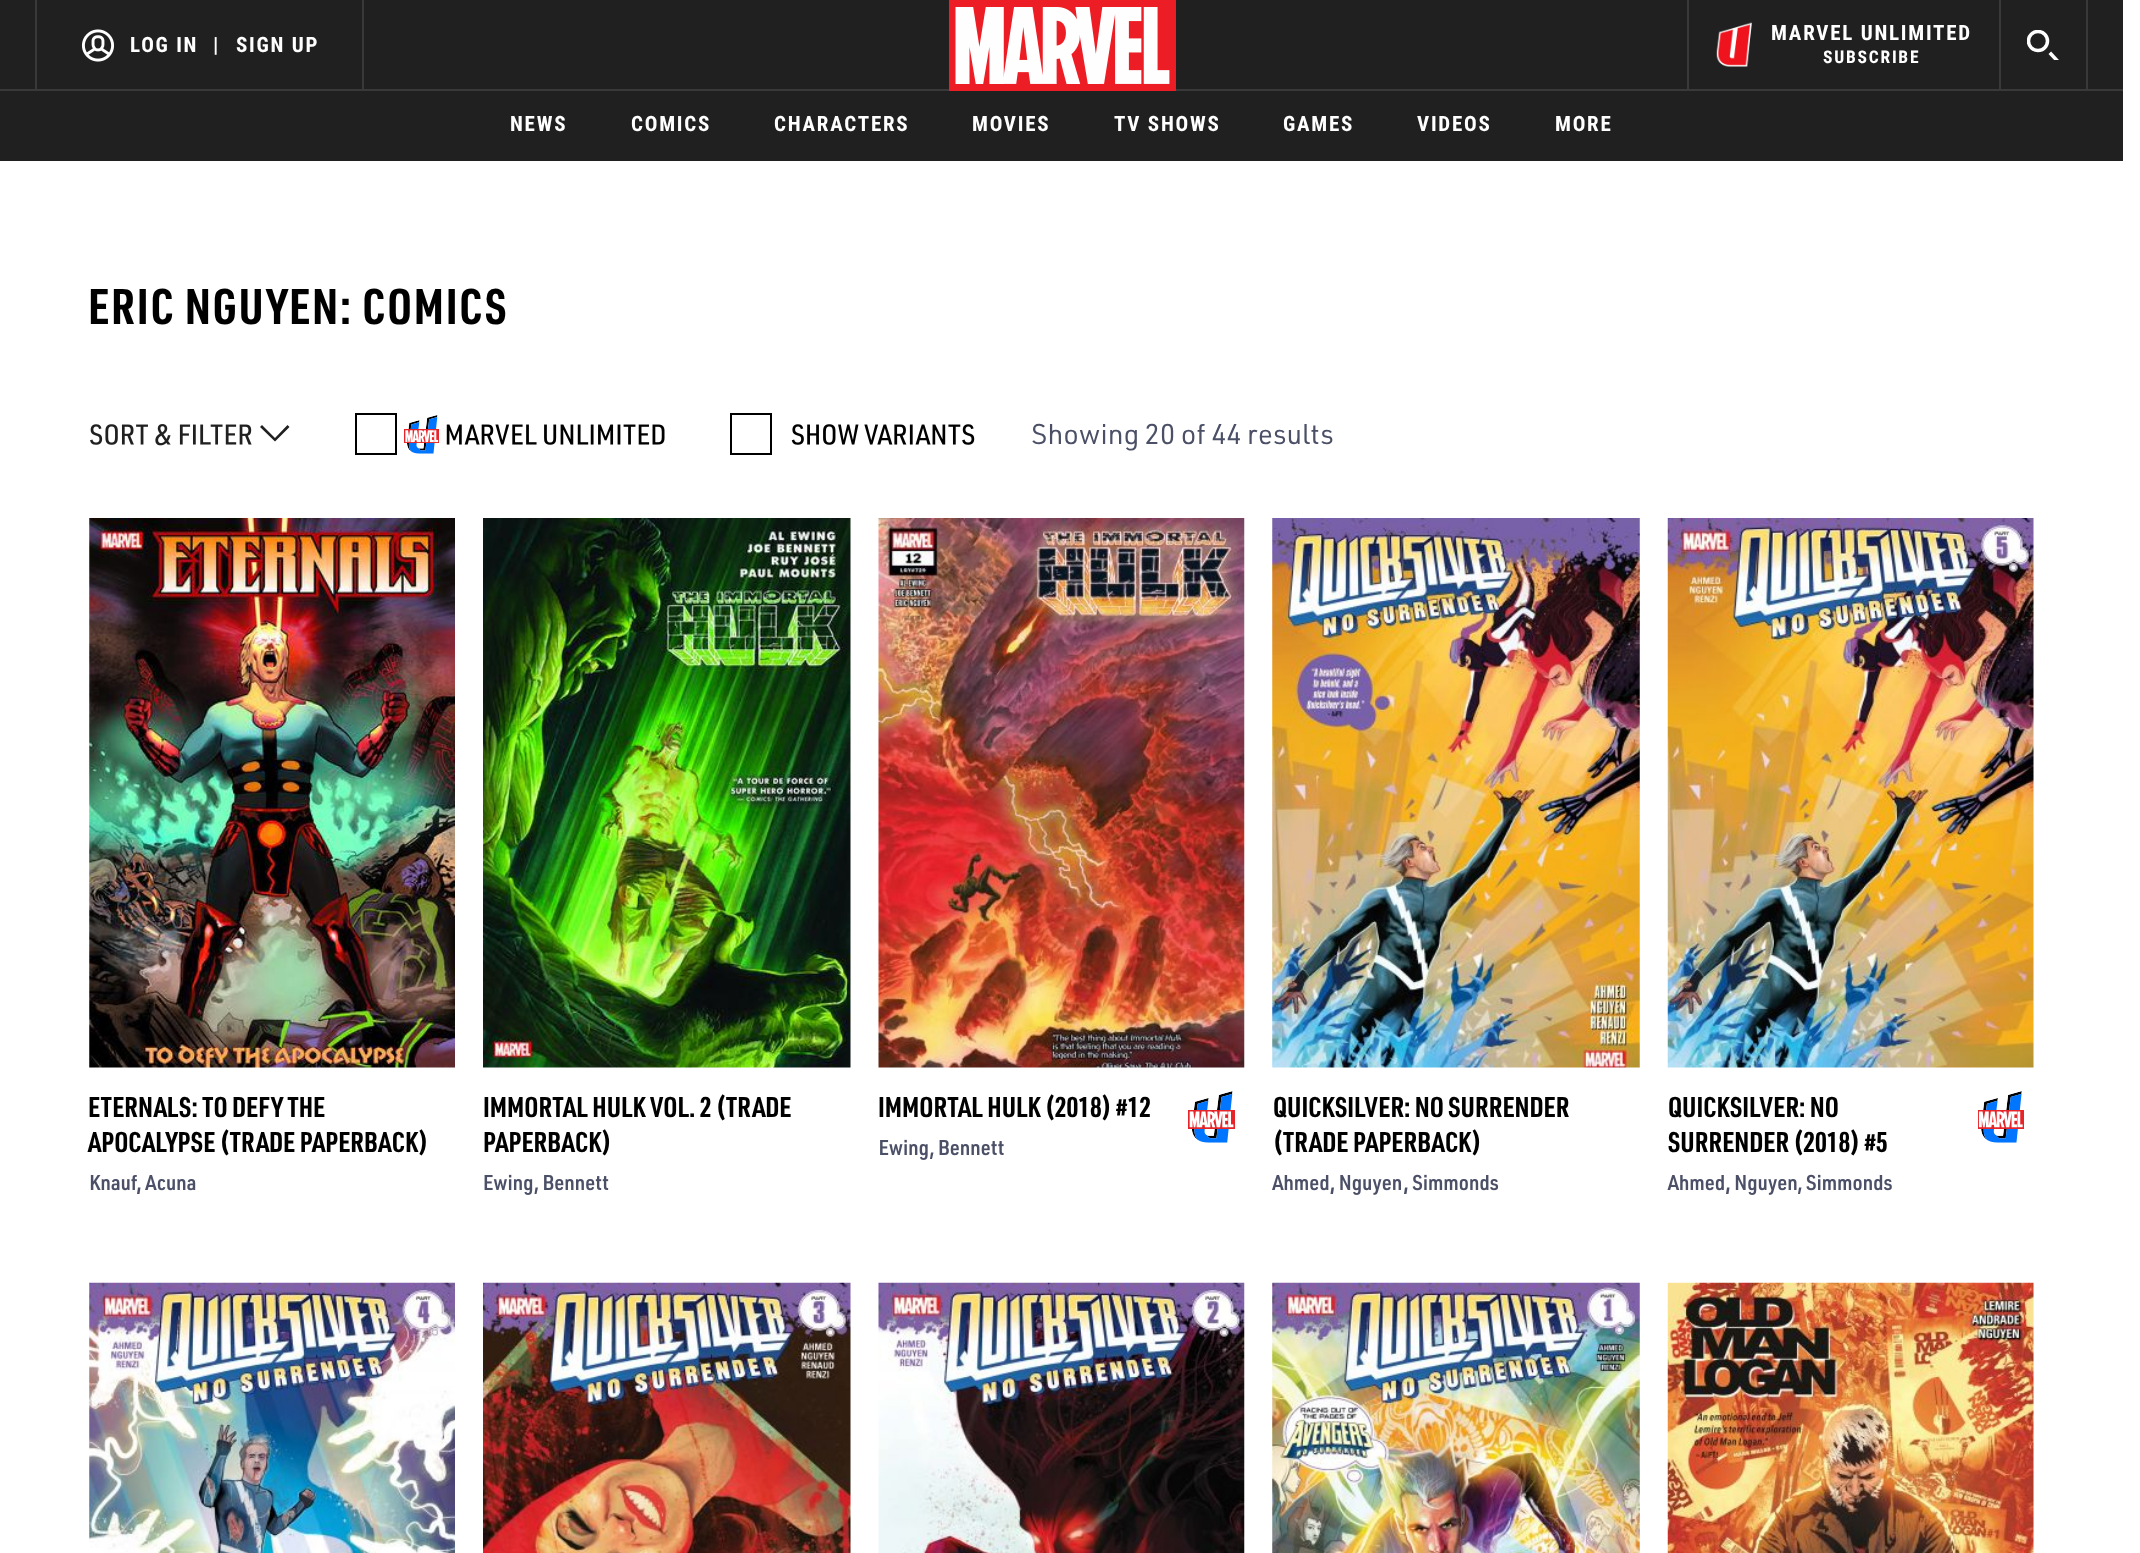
<svg xmlns="http://www.w3.org/2000/svg" width="2140" height="1553" viewBox="0 0 2140 1553">
  <defs>
    <clipPath id="clip1"><rect x="2027" y="30" width="33" height="30"/></clipPath>
  </defs>
  <rect width="100%" height="100%" fill="rgb(255,255,255)"/>
  <rect x="0" y="0" width="2123" height="161" fill="rgb(32,32,32)"/>
  <rect x="0" y="89" width="2123" height="2" fill="rgb(57,57,57)"/>
  <rect x="35" y="0" width="2" height="89" fill="rgb(57,57,57)"/>
  <rect x="362" y="0" width="2" height="89" fill="rgb(57,57,57)"/>
  <image x="81" y="29" width="34" height="33" href="pic1.png"/>
  <g font-family="Roboto Condensed" font-size="21" font-weight="bold" letter-spacing="1.75" fill="rgb(255,255,255)">
    <text x="130" y="52">LOG IN</text>
    <text x="213" y="52">|</text>
    <text x="236" y="52">SIGN UP</text>
  </g>
  <image x="949" y="0" width="227" height="91" href="pic2.png"/>
  <rect x="1687" y="0" width="2" height="89" fill="rgb(57,57,57)"/>
  <image x="1716" y="22" width="36" height="45" href="pic3.png"/>
  <text x="1771" y="40" font-family="Roboto Condensed" font-size="21" font-weight="bold" letter-spacing="1.75" fill="rgb(255,255,255)">MARVEL UNLIMITED</text>
  <text x="1823" y="63" font-family="Roboto Condensed" font-size="17.5" font-weight="bold" letter-spacing="1.75" fill="rgb(255,255,255)">SUBSCRIBE</text>
  <rect x="2086" y="0" width="2" height="89" fill="rgb(57,57,57)"/>
  <rect x="1999" y="0" width="2" height="89" fill="rgb(57,57,57)"/>
  <g clip-path="url(#clip1)">
    <circle cx="2038" cy="41" r="9.5" fill="none" stroke="rgb(255,255,255)" stroke-width="3.5"/>
    <path d="M2051 54L2057 60.5" fill="none" stroke="rgb(255,255,255)" stroke-width="3.5" stroke-linecap="square"/>
  </g>
  <g font-family="Roboto Condensed" font-size="21" font-weight="bold" letter-spacing="1.75" fill="rgb(255,255,255)">
    <text x="510" y="131">NEWS</text>
    <text x="631" y="131">COMICS</text>
    <text x="774" y="131">CHARACTERS</text>
    <text x="972" y="131">MOVIES</text>
    <text x="1114" y="131">TV SHOWS</text>
    <text x="1283" y="131">GAMES</text>
    <text x="1417" y="131">VIDEOS</text>
    <text x="1555" y="131">MORE</text>
  </g>
  <text x="88" y="324" font-family="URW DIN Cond" font-size="49" font-weight="bold" letter-spacing="1.75" fill="rgb(0,0,0)">ERIC NGUYEN: COMICS</text>
  <image x="90" y="424" width="162" height="22" href="pic4.png"/>
  <path d="M289.5 427L287.5 425L275 438L262 425L260 427L275 441.5Z" fill="rgb(32,32,32)"/>
  <rect x="356" y="414" width="40" height="40" fill="none" stroke="rgb(0,0,0)" stroke-width="2"/>
  <image x="404" y="415" width="35" height="39" href="pic5.png"/>
  <image x="446" y="424" width="219" height="21" href="pic6.png"/>
  <rect x="731" y="414" width="40" height="40" fill="none" stroke="rgb(0,0,0)" stroke-width="2"/>
  <image x="791" y="424" width="184" height="21" href="pic7.png"/>
  <text x="1031" y="444" font-family="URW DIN" font-size="28" fill="rgb(76,80,103)">Showing 20 of 44 results</text>
  <image x="89" y="518" width="366" height="550" href="pic8.png"/>
  <g font-family="URW DIN Cond" font-size="28" font-weight="bold" fill="rgb(0,0,0)">
    <text>
      <tspan x="88" y="1117">ETERNALS: TO DEFY THE</tspan>
      <tspan x="88" y="1152">APOCALYPSE (TRADE PAPERBACK)</tspan>
    </text>
  </g>
  <image x="90" y="1175" width="47" height="16" href="pic9.png"/>
  <path d="M137 1194L138 1187.5H140.5L139.5 1194Z" fill="rgb(76,80,103)"/>
  <image x="145" y="1175" width="51" height="16" href="pic10.png"/>
  <image x="483" y="518" width="368" height="550" href="pic11.png"/>
  <g font-family="URW DIN Cond" font-size="28" font-weight="bold" fill="rgb(0,0,0)">
    <text>
      <tspan x="483" y="1117">IMMORTAL HULK VOL. 2 (TRADE</tspan>
      <tspan x="483" y="1152">PAPERBACK)</tspan>
    </text>
  </g>
  <image x="484" y="1174" width="49" height="21" href="pic12.png"/>
  <path d="M534.5 1194L535.5 1187.5H538L536.5 1194Z" fill="rgb(76,80,103)"/>
  <image x="544" y="1175" width="65" height="16" href="pic13.png"/>
  <image x="878" y="518" width="367" height="550" href="pic14.png"/>
  <text x="878" y="1117" font-family="URW DIN Cond" font-size="28" font-weight="bold" fill="rgb(0,0,0)">IMMORTAL HULK (2018) #12</text>
  <image x="880" y="1139" width="48" height="21" href="pic15.png"/>
  <path d="M930 1159L931 1152.5H933.5L932 1159Z" fill="rgb(76,80,103)"/>
  <image x="939" y="1140" width="65" height="16" href="pic16.png"/>
  <image x="1188" y="1091" width="47" height="52" href="pic17.png"/>
  <image x="1272" y="518" width="368" height="550" href="pic18.png"/>
  <g font-family="URW DIN Cond" font-size="28" font-weight="bold" fill="rgb(0,0,0)">
    <text>
      <tspan x="1273" y="1117">QUICKSILVER: NO SURRENDER</tspan>
      <tspan x="1273" y="1152">(TRADE PAPERBACK)</tspan>
    </text>
  </g>
  <image x="1272" y="1175" width="57" height="16" href="pic19.png"/>
  <path d="M1330.5 1194L1331.5 1187.5H1334L1333 1194Z" fill="rgb(76,80,103)"/>
  <image x="1340" y="1175" width="61" height="20" href="pic20.png"/>
  <path d="M1404 1194L1405 1187.5H1407.5L1406.5 1194Z" fill="rgb(76,80,103)"/>
  <image x="1412" y="1174" width="87" height="17" href="pic21.png"/>
  <image x="1667" y="518" width="367" height="550" href="pic22.png"/>
  <g font-family="URW DIN Cond" font-size="28" font-weight="bold" fill="rgb(0,0,0)">
    <text>
      <tspan x="1668" y="1117">QUICKSILVER: NO</tspan>
      <tspan x="1668" y="1152">SURRENDER (2018) #5</tspan>
    </text>
  </g>
  <image x="1667" y="1175" width="57" height="16" href="pic23.png"/>
  <path d="M1726 1194L1727 1187.5H1729.5L1728.5 1194Z" fill="rgb(76,80,103)"/>
  <image x="1735" y="1175" width="62" height="20" href="pic24.png"/>
  <path d="M1798 1194L1799 1187.5H1801.5L1800 1194Z" fill="rgb(76,80,103)"/>
  <image x="1806" y="1174" width="86" height="17" href="pic25.png"/>
  <image x="1978" y="1091" width="46" height="52" href="pic26.png"/>
  <image x="89" y="1282" width="366" height="271" href="pic27.png"/>
  <image x="483" y="1282" width="368" height="271" href="pic28.png"/>
  <image x="878" y="1282" width="367" height="271" href="pic29.png"/>
  <image x="1272" y="1282" width="368" height="271" href="pic30.png"/>
  <image x="1667" y="1282" width="367" height="271" href="pic31.png"/>
</svg>
